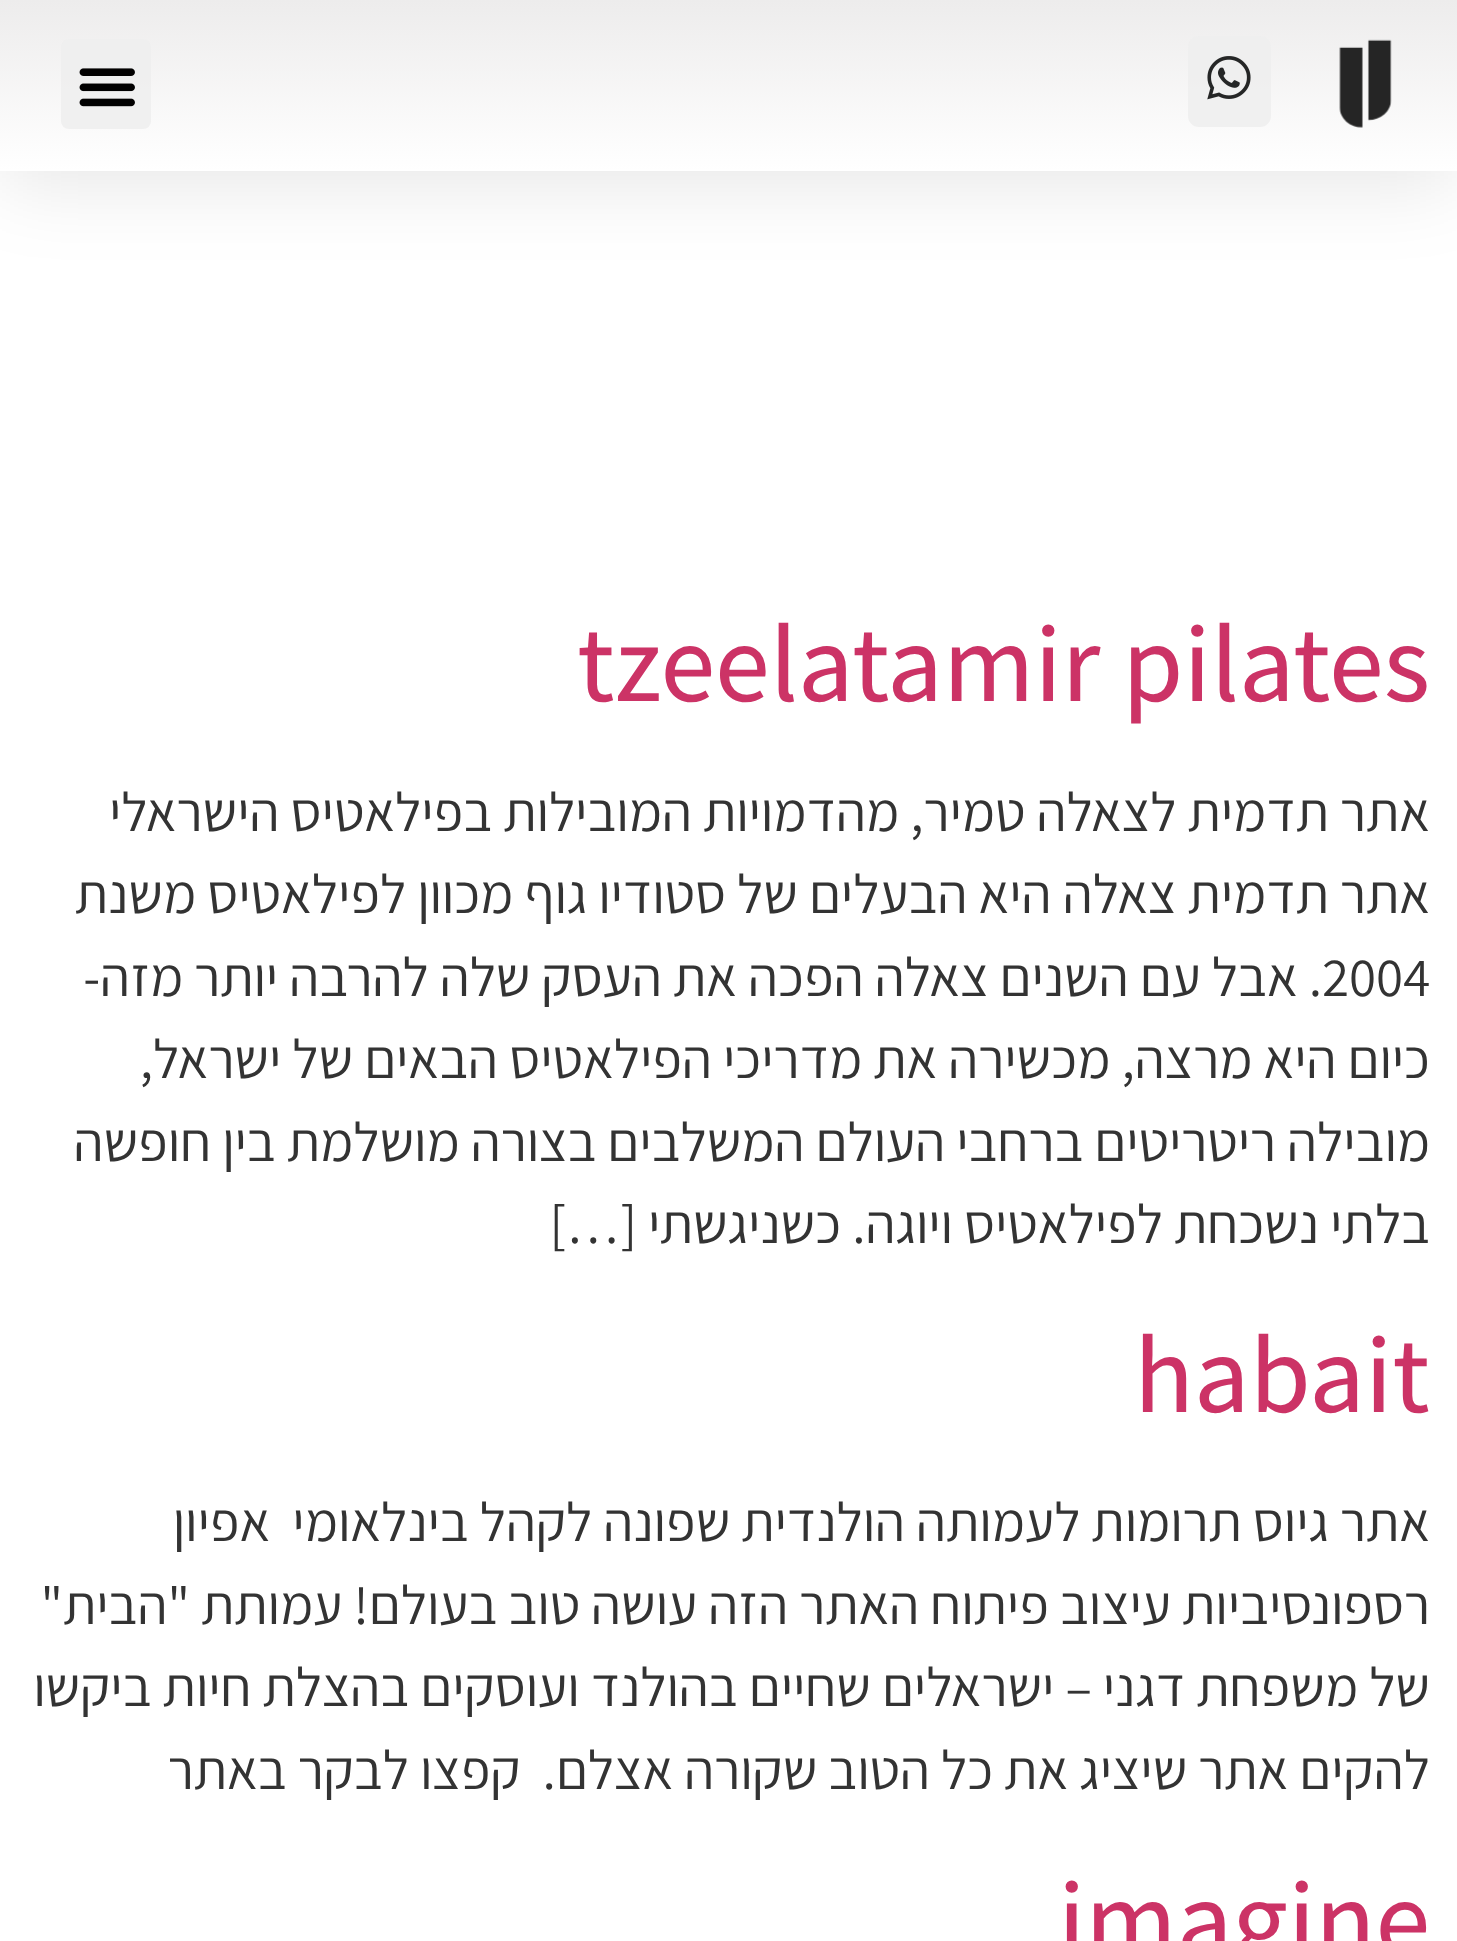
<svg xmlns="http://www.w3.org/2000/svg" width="1457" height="1941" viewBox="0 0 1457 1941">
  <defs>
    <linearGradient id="g1" gradientUnits="userSpaceOnUse" x1="729" y1="0" x2="729" y2="171"><stop offset="0" stop-color="rgb(237,236,236)"/><stop offset="1" stop-color="rgb(255,255,255)"/></linearGradient>
  </defs>
  <rect width="100%" height="100%" fill="rgb(255,255,255)"/>
  <rect x="0" y="11" width="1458" height="171" fill="rgba(0,0,0,0.1)" filter="blur(41px)"/>
  <rect x="0" y="0" width="1457" height="171" fill="url(#g1)"/>
  <image x="1339" y="39" width="53" height="89" href="pic1.png"/>
  <rect x="1188" y="36" width="83" height="91" rx="11" fill="rgba(239,239,239,0.91)"/>
  <image x="1207" y="56" width="44" height="44" href="pic2.png"/>
  <rect x="61" y="39" width="90" height="90" rx="8" fill="rgba(239,239,239,0.91)"/>
  <image x="79" y="68" width="56" height="39" href="pic3.png"/>
  <text x="577" y="701" font-family="Assistant" font-size="110" font-weight="500" fill="rgb(204,51,102)">tzeelatamir pilates</text>
  <g font-family="Assistant" font-size="55" direction="rtl" fill="rgb(51,51,51)">
    <text>
      <tspan x="1430" y="831">אתר תדמית לצאלה טמיר, מהדמויות המובילות בפילאטיס הישראלי</tspan>
      <tspan x="1430" y="913">אתר תדמית צאלה היא הבעלים של סטודיו גוף מכוון לפילאטיס משנת</tspan>
    </text>
  </g>
  <text x="1322" y="996" font-family="Assistant" font-size="55" fill="rgb(51,51,51)">2004</text>
  <g font-family="Assistant" font-size="55" direction="rtl" fill="rgb(51,51,51)">
    <text x="1322" y="996">. אבל עם השנים צאלה הפכה את העסק שלה להרבה יותר מזה-</text>
    <text>
      <tspan x="1430" y="1078">כיום היא מרצה, מכשירה את מדריכי הפילאטיס הבאים של ישראל,</tspan>
      <tspan x="1430" y="1161">מובילה ריטריטים ברחבי העולם המשלבים בצורה מושלמת בין חופשה</tspan>
      <tspan x="1430" y="1243">בלתי נשכחת לפילאטיס ויוגה. כשניגשתי […]</tspan>
    </text>
  </g>
  <text x="1134" y="1412" font-family="Assistant" font-size="110" font-weight="500" fill="rgb(204,51,102)">habait</text>
  <g font-family="Assistant" font-size="55" direction="rtl" fill="rgb(51,51,51)">
    <text xml:space="preserve"><tspan x="1430" y="1541">אתר גיוס תרומות לעמותה הולנדית שפונה לקהל בינלאומי  אפיון</tspan><tspan x="1430" y="1624">רספונסיביות עיצוב פיתוח האתר הזה עושה טוב בעולם! עמותת "הבית"</tspan><tspan x="1430" y="1706">של משפחת דגני – ישראלים שחיים בהולנד ועוסקים בהצלת חיות ביקשו</tspan><tspan x="1430" y="1789">להקים אתר שיציג את כל הטוב שקורה אצלם.  קפצו לבקר באתר</tspan></text>
  </g>
  <text x="1058" y="1957" font-family="Assistant" font-size="110" font-weight="500" fill="rgb(204,51,102)">imagine</text>
</svg>
